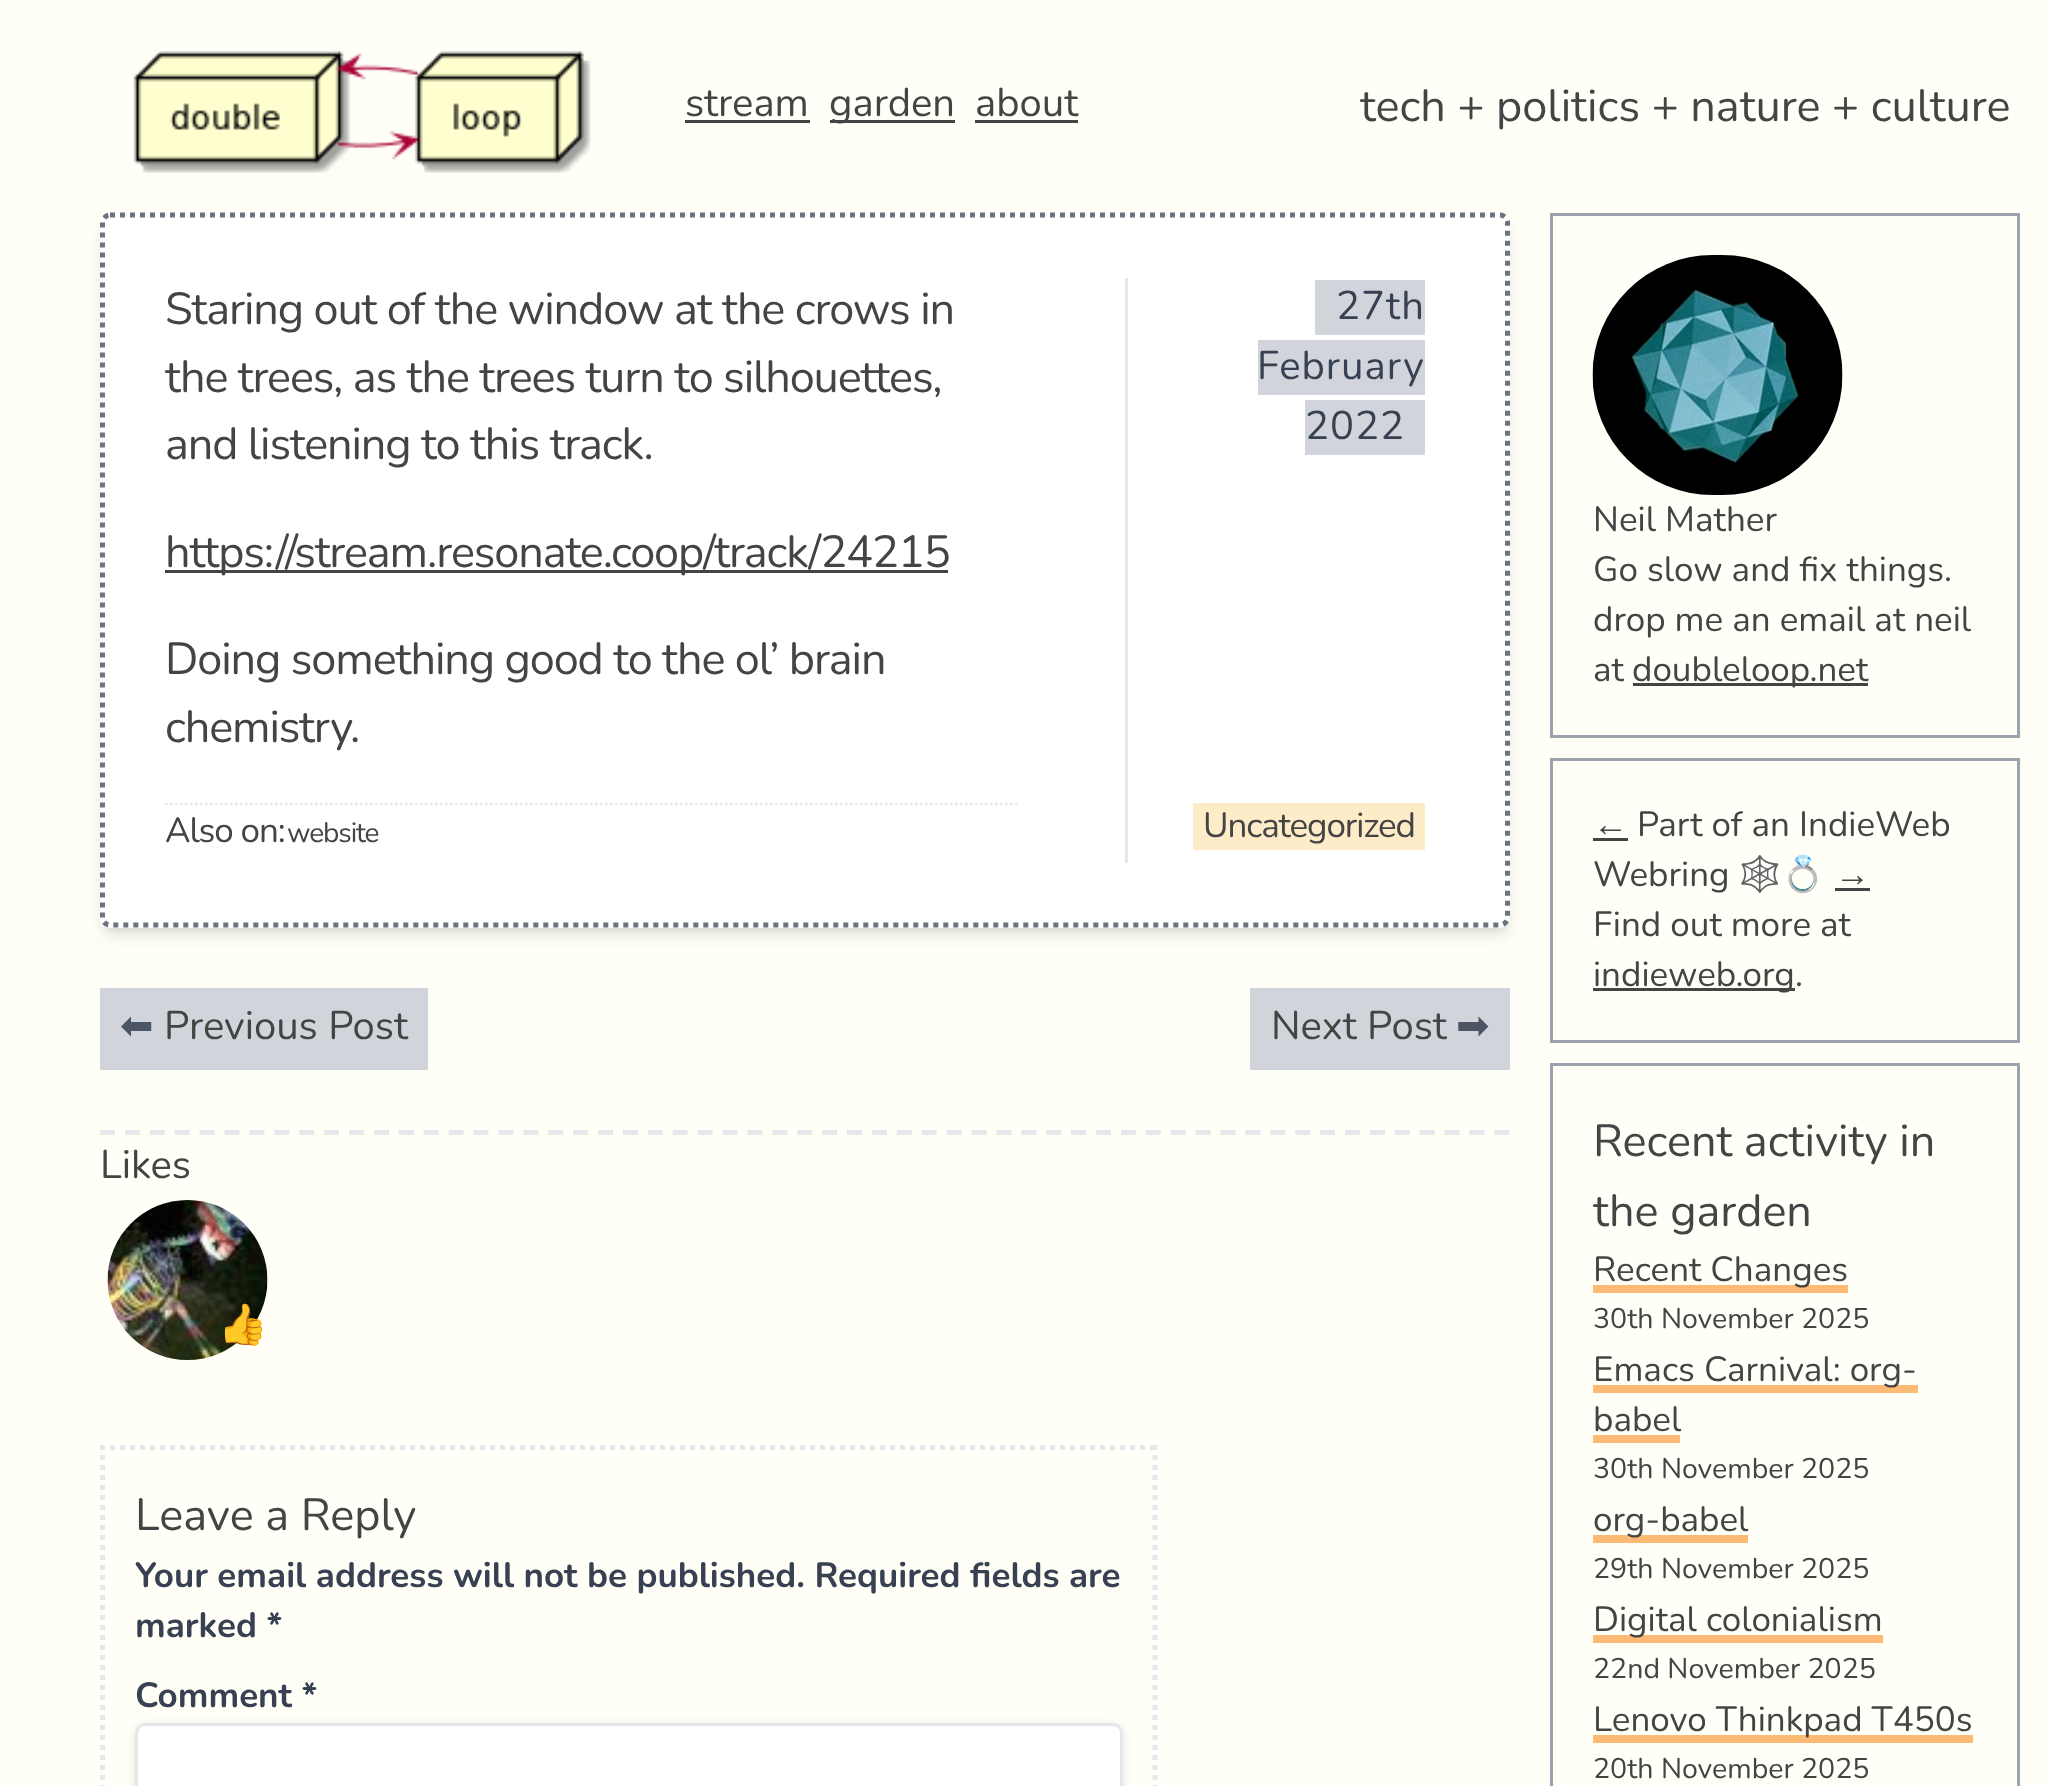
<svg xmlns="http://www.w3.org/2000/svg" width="2046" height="1786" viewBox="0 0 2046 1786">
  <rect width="100%" height="100%" fill="rgb(255,255,248)"/>
  <image x="133" y="50" width="458" height="123" href="pic1.png"/>
  <text x="685" y="116" font-family="Nunito" font-size="40" fill="rgb(68,68,68)">stream</text>
  <rect x="685" y="120" width="125" height="3" fill="rgb(68,68,68)"/>
  <rect x="830" y="120" width="125" height="3" fill="rgb(68,68,68)"/>
  <g font-family="Nunito" font-size="40" fill="rgb(68,68,68)">
    <text x="829" y="116">garden</text>
    <text x="975" y="116">about</text>
  </g>
  <rect x="975" y="120" width="103" height="3" fill="rgb(68,68,68)"/>
  <text x="1360" y="121" font-family="Nunito" font-size="45" fill="rgb(68,68,68)">tech + politics + nature + culture</text>
  <rect x="105" y="223" width="1400" height="705" rx="5" fill="rgba(0,0,0,0.1)" filter="blur(5px)"/>
  <rect x="103" y="225" width="1405" height="710" rx="8" fill="rgba(0,0,0,0.1)" filter="blur(7.5px)"/>
  <rect x="100" y="213" width="1410" height="715" rx="10" fill="rgb(255,255,255)"/>
  <path d="M110 215H1500C1504 215 1507.5 218.5 1507.5 222.5V917.5C1507.5 921.5 1504 925 1500 925H110C106 925 102.5 921.5 102.5 917.5V222.5C102.5 218.5 106 215 110 215Z" fill="none" stroke="rgb(107,114,128)" stroke-width="5" stroke-dasharray="5 5"/>
  <g font-family="Nunito" font-size="45" letter-spacing="-1.1" fill="rgb(68,68,68)">
    <text>
      <tspan x="165" y="324">Staring out of the window at the crows in</tspan>
      <tspan x="165" y="392">the trees, as the trees turn to silhouettes,</tspan>
      <tspan x="165" y="459">and listening to this track.</tspan>
    </text>
  </g>
  <rect x="165" y="570" width="783" height="3" fill="rgb(68,68,68)"/>
  <g font-family="Nunito" font-size="45" letter-spacing="-1.1" fill="rgb(68,68,68)">
    <text x="165" y="567">https://stream.resonate.coop/track/24215</text>
    <text>
      <tspan x="165" y="674">Doing something good to the ol’ brain</tspan>
      <tspan x="165" y="742">chemistry.</tspan>
    </text>
  </g>
  <path d="M165 804H1017.5" fill="none" stroke="rgb(229,231,235)" stroke-width="2.5" stroke-dasharray="2.5 2.5"/>
  <text x="165" y="842" font-family="Nunito" font-size="35" letter-spacing="-1.1" fill="rgb(68,68,68)">Also on:</text>
  <text x="287" y="842" font-family="Nunito" font-size="28" letter-spacing="-1.1" fill="rgb(68,68,68)">website</text>
  <rect x="1125" y="278" width="3" height="585" fill="rgb(229,231,235)"/>
  <rect x="1315" y="280" width="110" height="55" fill="rgb(209,213,219)"/>
  <text x="1336" y="319" font-family="Nunito" font-size="40" letter-spacing="1" fill="rgb(55,65,81)">27th</text>
  <rect x="1258" y="340" width="167" height="55" fill="rgb(209,213,219)"/>
  <text x="1257" y="379" font-family="Nunito" font-size="40" letter-spacing="1" fill="rgb(55,65,81)">February</text>
  <rect x="1305" y="400" width="120" height="55" fill="rgb(209,213,219)"/>
  <text x="1305" y="439" font-family="Nunito" font-size="40" letter-spacing="1" fill="rgb(55,65,81)">2022</text>
  <rect x="1193" y="803" width="232" height="47" fill="rgb(254,235,200)"/>
  <text x="1203" y="837" font-family="Nunito" font-size="35" letter-spacing="-1.1" fill="rgb(68,68,68)">Uncategorized</text>
  <rect x="100" y="988" width="328" height="82" fill="rgb(209,213,219)"/>
  <text x="120" y="1039" font-family="DejaVu Sans" font-size="40" fill="rgb(75,85,99)">⬅</text>
  <text x="164" y="1039" font-family="Nunito" font-size="40" fill="rgb(68,68,68)">Previous Post</text>
  <rect x="1250" y="988" width="260" height="82" fill="rgb(209,213,219)"/>
  <text x="1271" y="1039" font-family="Nunito" font-size="40" fill="rgb(68,68,68)">Next Post</text>
  <text x="1456" y="1039" font-family="DejaVu Sans" font-size="40" fill="rgb(75,85,99)">➡</text>
  <path d="M100 1132.5H1510" fill="none" stroke="rgb(229,231,235)" stroke-width="5" stroke-dasharray="15 9.9"/>
  <text x="100" y="1178" font-family="Nunito" font-size="40" fill="rgb(68,68,68)">Likes</text>
  <image x="107" y="1200" width="161" height="160" href="pic2.png"/>
  <text x="218" y="1338" font-family="Noto Color Emoji" font-size="40" fill="rgb(68,68,68)">👍</text>
  <path d="M100 1447.5H1157.5" fill="none" stroke="rgb(229,231,235)" stroke-width="5" stroke-dasharray="5 5"/>
  <path d="M1155 1445V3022.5" fill="none" stroke="rgb(229,231,235)" stroke-width="5" stroke-dasharray="5 5"/>
  <path d="M102.5 1445V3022.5" fill="none" stroke="rgb(229,231,235)" stroke-width="5" stroke-dasharray="5 5"/>
  <text x="135" y="1530" font-family="Nunito" font-size="45" fill="rgb(68,68,68)">Leave a Reply</text>
  <g font-family="Nunito" font-size="35" font-weight="bold" fill="rgb(55,65,81)">
    <text>
      <tspan x="135" y="1587">Your email address will not be published. Required fields are</tspan>
      <tspan x="135" y="1637">marked *</tspan>
    </text>
    <text x="135" y="1707">Comment *</text>
  </g>
  <rect x="135" y="1725" width="988" height="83" rx="10" fill="rgba(0,0,0,0.1)" filter="blur(4px)"/>
  <rect x="136.5" y="1724.5" width="985" height="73" rx="8.5" fill="rgb(255,255,255)" stroke="rgb(229,231,235)" stroke-width="3"/>
  <rect x="1551.5" y="214.5" width="467" height="522" fill="none" stroke="rgb(156,163,175)" stroke-width="3"/>
  <image x="1592" y="255" width="251" height="240" href="pic3.png"/>
  <g font-family="Nunito" font-size="35" fill="rgb(68,68,68)">
    <text>
      <tspan x="1593" y="531">Neil Mather</tspan>
      <tspan x="1593" y="581">Go slow and fix things.</tspan>
      <tspan x="1593" y="631">drop me an email at neil</tspan>
      <tspan x="1593" y="681">at</tspan>
    </text>
  </g>
  <rect x="1633" y="683" width="235" height="3" fill="rgb(68,68,68)"/>
  <text x="1632" y="681" font-family="Nunito" font-size="35" fill="rgb(68,68,68)">doubleloop.net</text>
  <rect x="1551.5" y="759.5" width="467" height="282" fill="none" stroke="rgb(156,163,175)" stroke-width="3"/>
  <text x="1593" y="836" font-family="Liberation Sans" font-size="35" fill="rgb(68,68,68)">←</text>
  <rect x="1593" y="838" width="35" height="3" fill="rgb(68,68,68)"/>
  <g font-family="Nunito" font-size="35" fill="rgb(68,68,68)">
    <text x="1637" y="836">Part of an IndieWeb</text>
    <text x="1593" y="886">Webring</text>
  </g>
  <text x="1738" y="886" font-family="Noto Color Emoji" font-size="35" fill="rgb(68,68,68)">🕸💍</text>
  <text x="1835" y="886" font-family="Liberation Sans" font-size="35" fill="rgb(68,68,68)">→</text>
  <rect x="1835" y="888" width="35" height="3" fill="rgb(68,68,68)"/>
  <text x="1593" y="936" font-family="Nunito" font-size="35" fill="rgb(68,68,68)">Find out more at</text>
  <rect x="1593" y="988" width="202" height="3" fill="rgb(68,68,68)"/>
  <text x="1593" y="986" font-family="Nunito" font-size="35" fill="rgb(68,68,68)">indieweb.org.</text>
  <rect x="1551.5" y="1064.5" width="467" height="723" fill="none" stroke="rgb(156,163,175)" stroke-width="3"/>
  <g font-family="Nunito" font-size="45" fill="rgb(68,68,68)">
    <text>
      <tspan x="1593" y="1156">Recent activity in</tspan>
      <tspan x="1593" y="1226">the garden</tspan>
    </text>
  </g>
  <rect x="1593" y="1285" width="255" height="8" fill="rgb(253,186,116)"/>
  <text x="1593" y="1281" font-family="Nunito" font-size="35" fill="rgb(68,68,68)">Recent Changes</text>
  <text x="1593" y="1328" font-family="Nunito" font-size="28.5" fill="rgb(68,68,68)">30th November 2025</text>
  <rect x="1593" y="1385" width="325" height="8" fill="rgb(253,186,116)"/>
  <g font-family="Nunito" font-size="35" fill="rgb(68,68,68)">
    <text>
      <tspan x="1593" y="1381">Emacs Carnival: org-</tspan>
      <tspan x="1593" y="1431">babel</tspan>
    </text>
  </g>
  <rect x="1593" y="1435" width="87" height="8" fill="rgb(253,186,116)"/>
  <text x="1593" y="1478" font-family="Nunito" font-size="28.5" fill="rgb(68,68,68)">30th November 2025</text>
  <rect x="1593" y="1535" width="155" height="8" fill="rgb(253,186,116)"/>
  <text x="1593" y="1531" font-family="Nunito" font-size="35" fill="rgb(68,68,68)">org-babel</text>
  <text x="1593" y="1578" font-family="Nunito" font-size="28.5" fill="rgb(68,68,68)">29th November 2025</text>
  <rect x="1593" y="1635" width="290" height="8" fill="rgb(253,186,116)"/>
  <text x="1593" y="1631" font-family="Nunito" font-size="35" fill="rgb(68,68,68)">Digital colonialism</text>
  <text x="1593" y="1678" font-family="Nunito" font-size="28.5" fill="rgb(68,68,68)">22nd November 2025</text>
  <rect x="1593" y="1735" width="380" height="8" fill="rgb(253,186,116)"/>
  <text x="1593" y="1731" font-family="Nunito" font-size="35" fill="rgb(68,68,68)">Lenovo Thinkpad T450s</text>
  <text x="1593" y="1778" font-family="Nunito" font-size="28.5" fill="rgb(68,68,68)">20th November 2025</text>
</svg>
